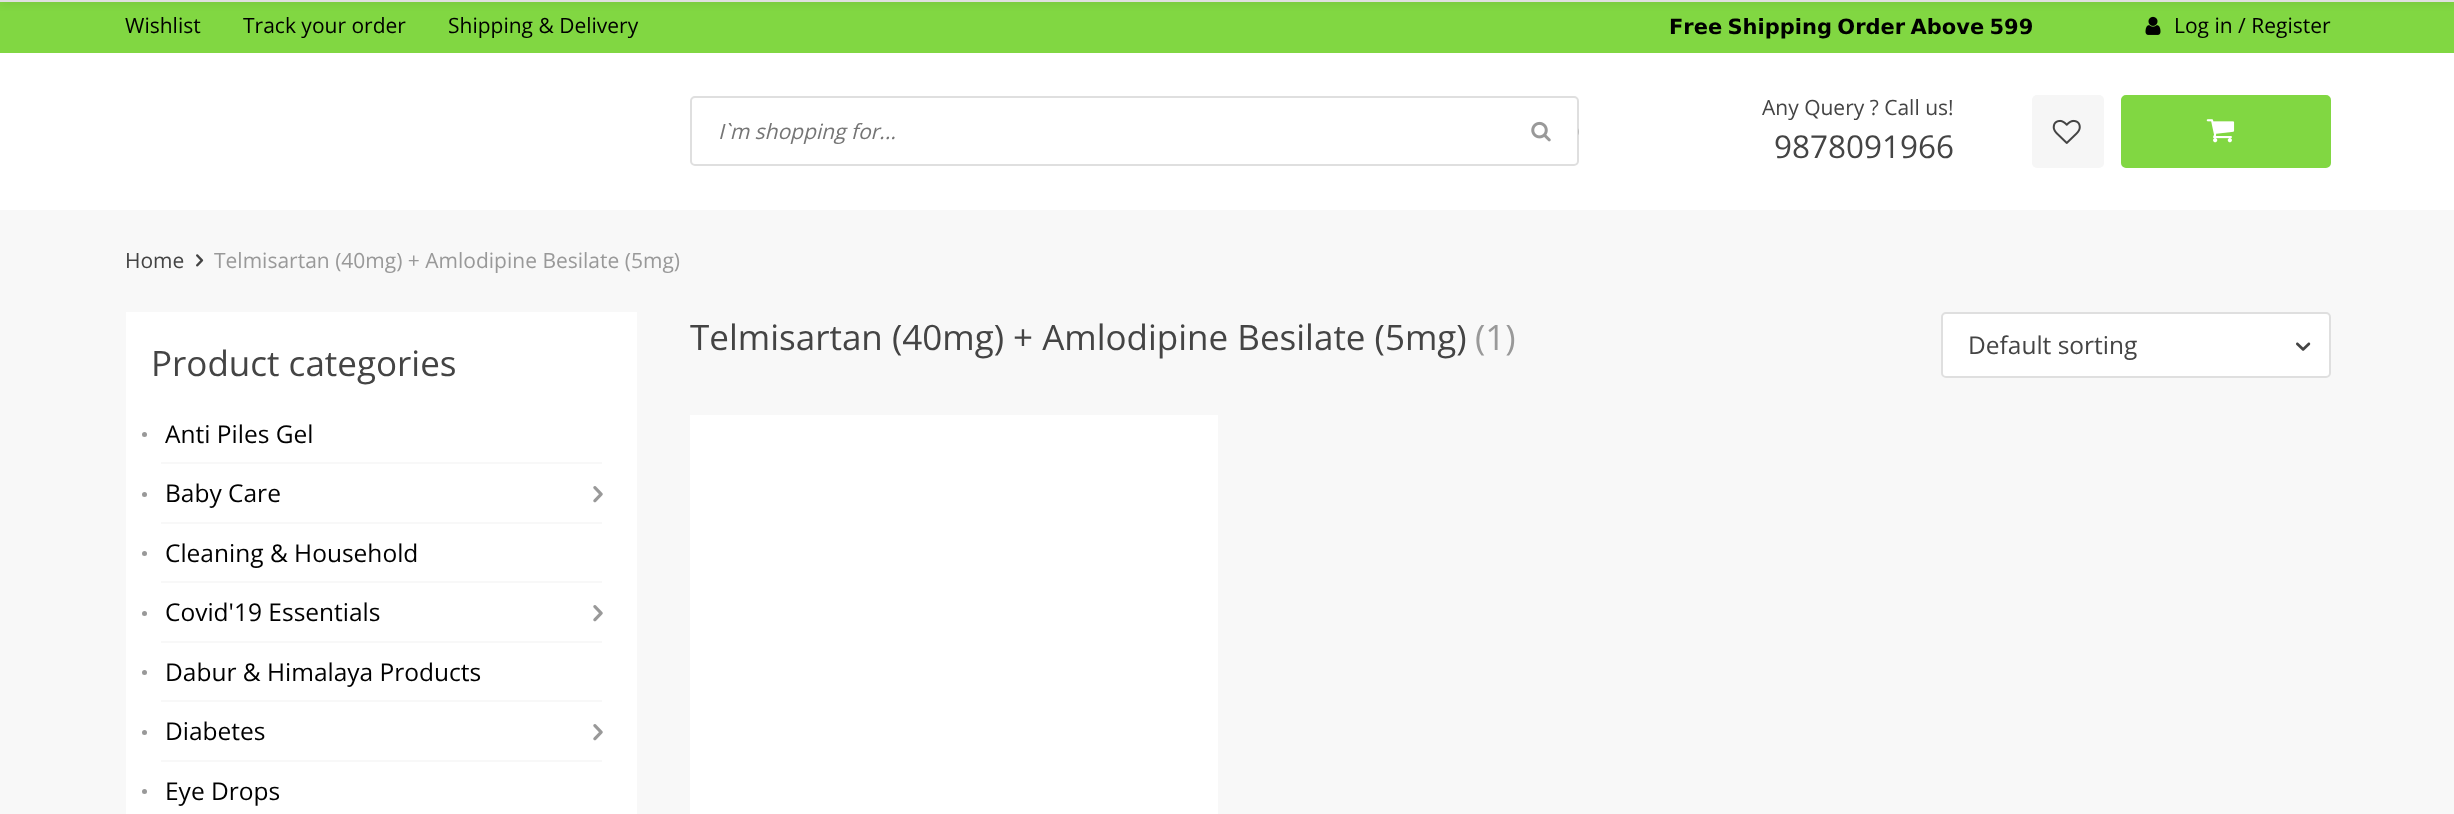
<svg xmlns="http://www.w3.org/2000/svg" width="2454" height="814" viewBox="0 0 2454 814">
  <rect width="100%" height="100%" fill="rgb(248,248,248)"/>
  <rect x="0" y="2" width="2454" height="51" fill="rgb(129,215,66)"/>
  <g font-family="Open Sans" font-size="21" fill="rgb(0,0,0)">
    <text x="125" y="33">Wishlist</text>
    <text x="243" y="33">Track your order</text>
    <text x="448" y="33">Shipping &amp; Delivery</text>
  </g>
  <text x="1669" y="34" word-spacing="-2" font-family="DejaVu Sans" font-size="21" font-weight="bold" fill="rgb(0,0,0)">𝗙𝗿𝗲𝗲 𝗦𝗵𝗶𝗽𝗽𝗶𝗻𝗴 𝗢𝗿𝗱𝗲𝗿 𝗔𝗯𝗼𝘃𝗲 𝟱𝟵𝟵</text>
  <image x="2145" y="16" width="16" height="19" href="pic1.png"/>
  <text x="2174" y="33" font-family="Open Sans" font-size="21" fill="rgb(0,0,0)">Log in / Register</text>
  <rect x="0" y="53" width="2454" height="157" fill="rgb(255,255,255)"/>
  <rect x="691" y="97" width="887" height="68" rx="4" fill="none" stroke="rgb(223,223,223)" stroke-width="2"/>
  <text x="718" y="139" font-family="Open Sans" font-size="21" font-style="italic" fill="rgb(117,117,117)">I`m shopping for...</text>
  <image x="1531" y="121" width="20" height="21" href="pic2.png"/>
  <image x="1578" y="128" width="1" height="7" href="pic3.png"/>
  <text x="1762" y="115" font-family="Open Sans" font-size="21" fill="rgb(68,68,68)">Any Query ? Call us!</text>
  <text x="1774" y="158" font-family="Open Sans" font-size="31.5" fill="rgb(68,68,68)">9878091966</text>
  <rect x="2032" y="95" width="72" height="73" rx="5" fill="rgb(246,246,246)"/>
  <image x="2052" y="119" width="29" height="25" href="pic4.png"/>
  <rect x="2122" y="96" width="208" height="71" rx="4" fill="rgb(129,215,66)" stroke="rgb(129,215,66)" stroke-width="2"/>
  <image x="2206" y="119" width="29" height="24" href="pic5.png"/>
  <text x="125" y="268" font-family="Open Sans" font-size="21" fill="rgb(68,68,68)">Home</text>
  <image x="196" y="254" width="8" height="13" href="pic6.png"/>
  <text x="214" y="268" font-family="Open Sans" font-size="21" fill="rgb(153,153,153)">Telmisartan (40mg) + Amlodipine Besilate (5mg)</text>
  <rect x="0" y="0" width="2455" height="2" fill="rgba(0,0,0,0.25)" filter="blur(4.5px)"/>
  <rect x="0" y="0" width="2454" height="2" fill="rgb(223,223,223)"/>
  <text x="690" y="350" font-family="Open Sans" font-size="35" fill="rgb(68,68,68)">Telmisartan (40mg) + Amlodipine Besilate (5mg)</text>
  <text x="1475" y="350" font-family="Open Sans" font-size="35" fill="rgb(153,153,153)">(1)</text>
  <rect x="1942" y="313" width="388" height="64" rx="4" fill="rgb(255,255,255)" stroke="rgb(223,223,223)" stroke-width="2"/>
  <text x="1968" y="354" font-family="Open Sans" font-size="24.5" fill="rgb(68,68,68)">Default sorting</text>
  <image x="2296" y="342" width="15" height="9" href="pic7.png"/>
  <rect x="690" y="415" width="528" height="399" fill="rgb(255,255,255)"/>
  <rect x="126" y="312" width="511" height="502" fill="rgb(255,255,255)"/>
  <text x="151" y="376" font-family="Open Sans" font-size="35" fill="rgb(68,68,68)">Product categories</text>
  <circle cx="144.5" cy="434.5" r="2.5" fill="rgb(153,153,153)"/>
  <text x="165" y="443" font-family="Open Sans" font-size="24.5" fill="rgb(0,0,0)">Anti Piles Gel</text>
  <rect x="161" y="462" width="441" height="2" fill="rgb(248,248,248)"/>
  <circle cx="144.5" cy="494.5" r="2.5" fill="rgb(153,153,153)"/>
  <text x="165" y="502" font-family="Open Sans" font-size="24.5" fill="rgb(0,0,0)">Baby Care</text>
  <image x="593" y="486" width="10" height="17" href="pic8.png"/>
  <rect x="161" y="522" width="441" height="2" fill="rgb(248,248,248)"/>
  <circle cx="144.5" cy="553.5" r="2.5" fill="rgb(153,153,153)"/>
  <text x="165" y="562" font-family="Open Sans" font-size="24.5" fill="rgb(0,0,0)">Cleaning &amp; Household</text>
  <rect x="161" y="581" width="441" height="2" fill="rgb(248,248,248)"/>
  <circle cx="144.5" cy="613.5" r="2.5" fill="rgb(153,153,153)"/>
  <text x="165" y="621" font-family="Open Sans" font-size="24.5" fill="rgb(0,0,0)">Covid'19 Essentials</text>
  <image x="593" y="605" width="10" height="17" href="pic8.png"/>
  <rect x="161" y="641" width="441" height="2" fill="rgb(248,248,248)"/>
  <circle cx="144.5" cy="672.5" r="2.5" fill="rgb(153,153,153)"/>
  <text x="165" y="681" font-family="Open Sans" font-size="24.5" fill="rgb(0,0,0)">Dabur &amp; Himalaya Products</text>
  <rect x="161" y="700" width="441" height="2" fill="rgb(248,248,248)"/>
  <circle cx="144.5" cy="732.5" r="2.5" fill="rgb(153,153,153)"/>
  <text x="165" y="740" font-family="Open Sans" font-size="24.5" fill="rgb(0,0,0)">Diabetes</text>
  <image x="593" y="724" width="10" height="17" href="pic8.png"/>
  <rect x="161" y="760" width="441" height="2" fill="rgb(248,248,248)"/>
  <circle cx="144.5" cy="791.5" r="2.5" fill="rgb(153,153,153)"/>
  <text x="165" y="800" font-family="Open Sans" font-size="24.5" fill="rgb(0,0,0)">Eye Drops</text>
</svg>
